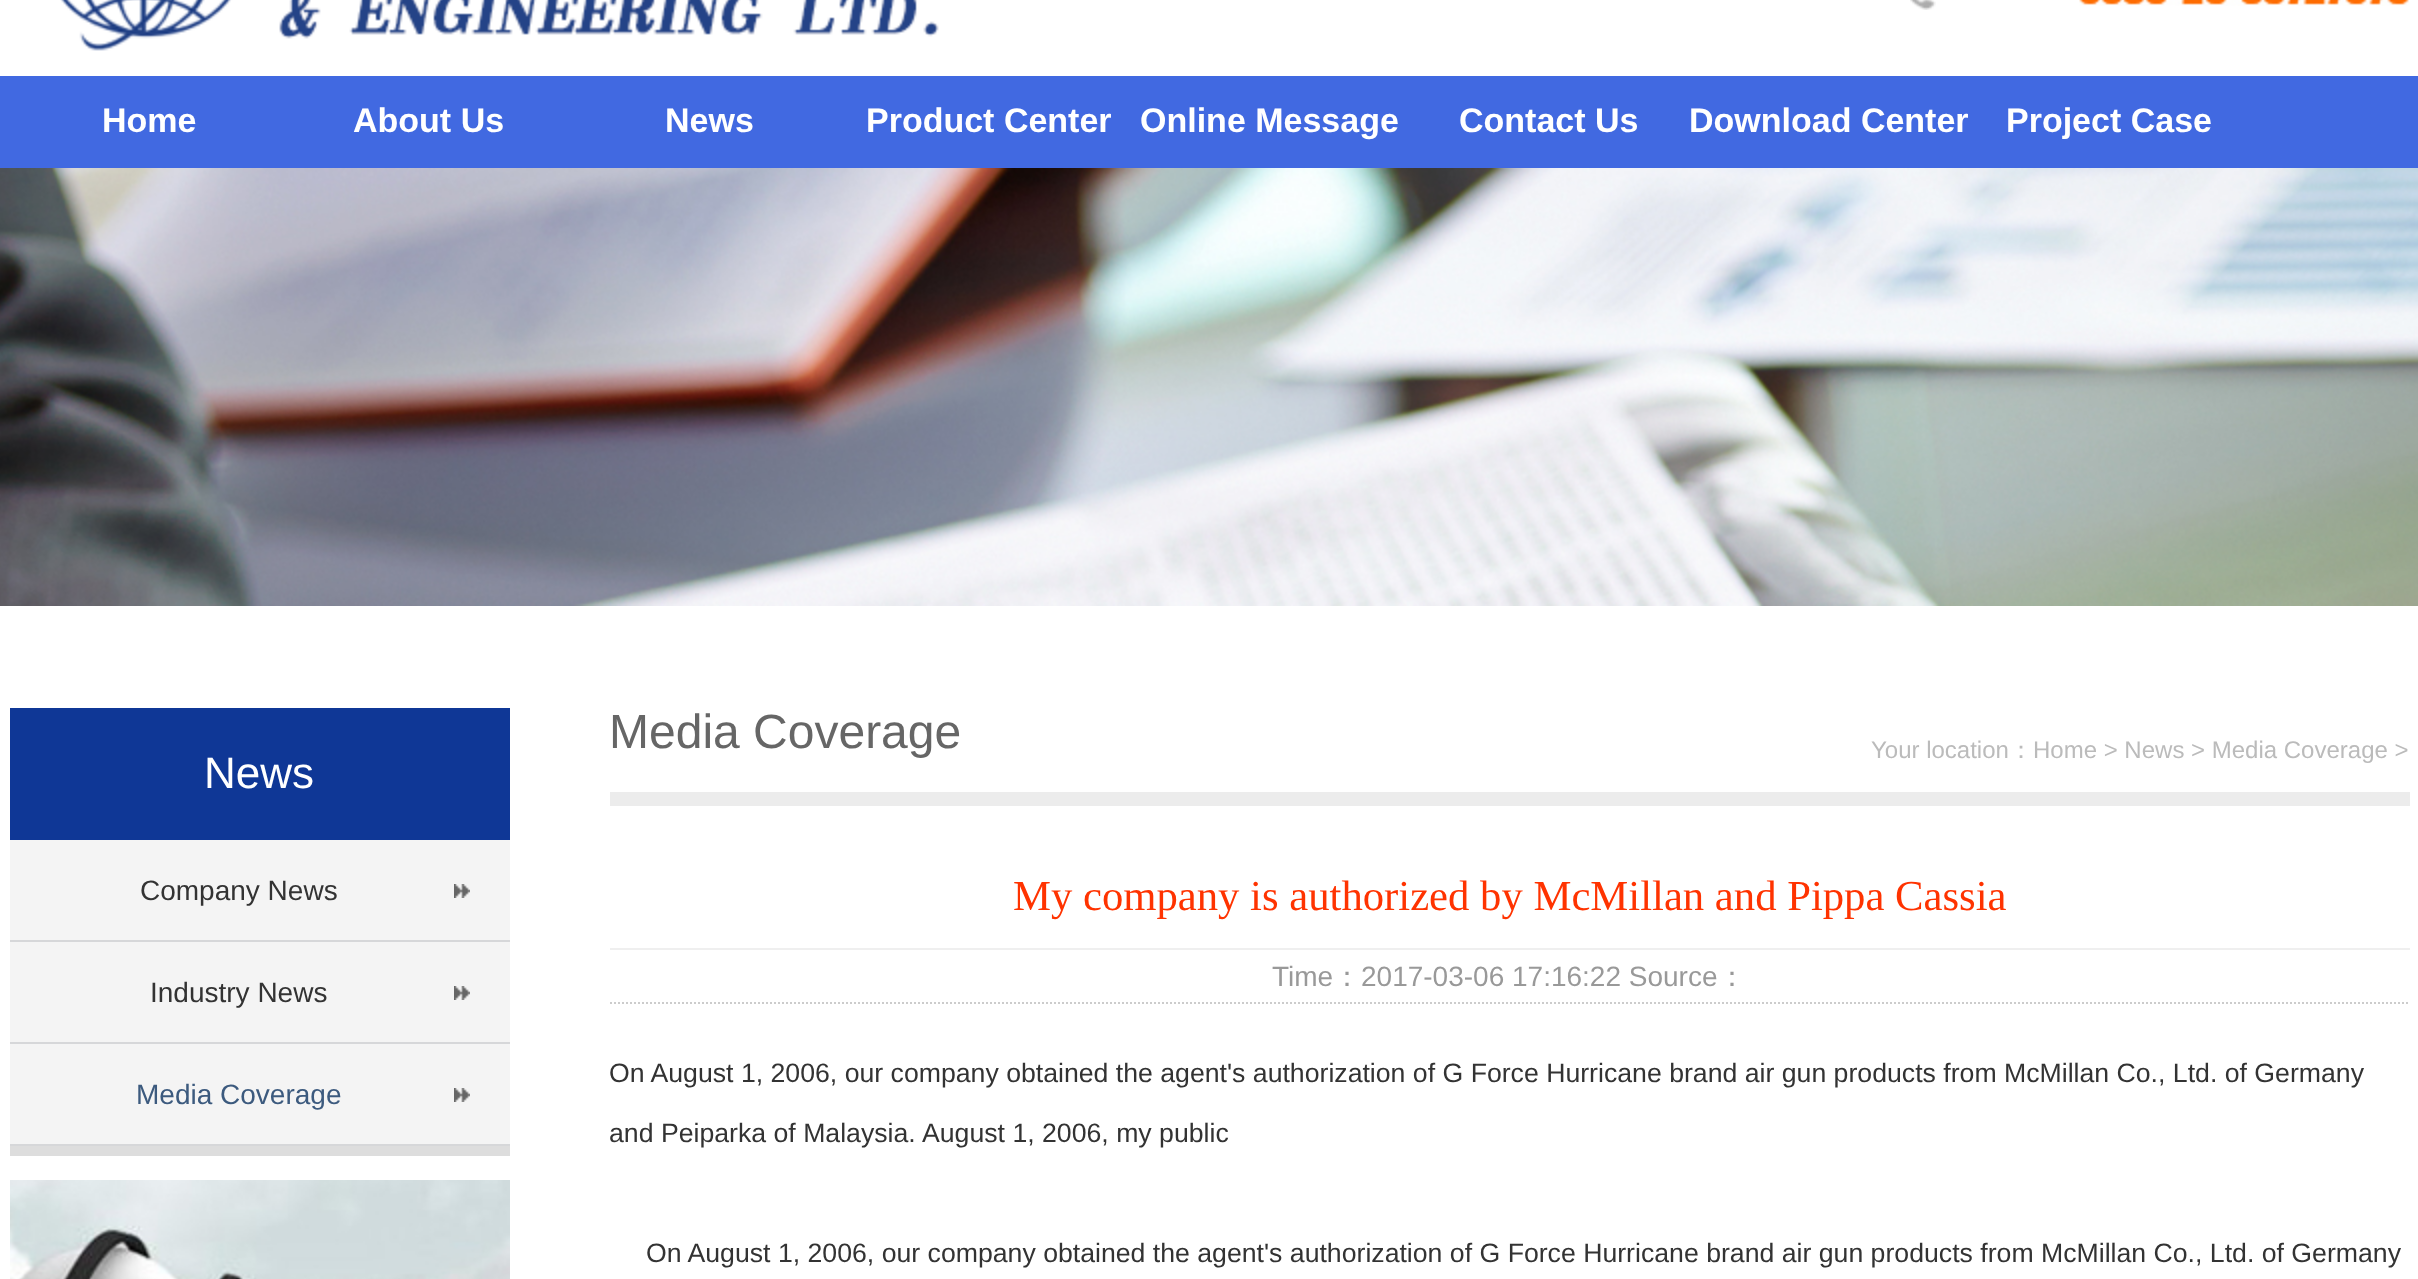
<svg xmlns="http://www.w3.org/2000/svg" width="2418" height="1279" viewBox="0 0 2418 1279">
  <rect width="100%" height="100%" fill="rgb(255,255,255)"/>
  <image x="60" y="0" width="879" height="51" href="pic1.png"/>
  <image x="1910" y="0" width="26" height="10" href="pic2.png"/>
  <image x="2079" y="0" width="330" height="6" href="pic3.png"/>
  <rect x="0" y="76" width="2418" height="92" fill="rgb(65,105,225)"/>
  <g font-family="Liberation Sans" font-size="34" font-weight="bold" fill="rgb(255,255,255)">
    <text x="102" y="132">Home</text>
    <text x="353" y="132">About Us</text>
    <text x="665" y="132">News</text>
    <text x="866" y="132">Product Center</text>
    <text x="1140" y="132">Online Message</text>
    <text x="1459" y="132">Contact Us</text>
    <text x="1689" y="132">Download Center</text>
    <text x="2006" y="132">Project Case</text>
  </g>
  <image x="0" y="168" width="2418" height="438" href="pic4.png"/>
  <rect x="10" y="708" width="500" height="132" fill="rgb(15,55,150)"/>
  <text x="204" y="788" font-family="Liberation Sans" font-size="44" fill="rgb(255,255,255)">News</text>
  <rect x="10" y="840" width="500" height="304" fill="rgb(244,244,244)"/>
  <rect x="10" y="1146" width="500" height="10" fill="rgb(221,221,221)"/>
  <rect x="10" y="940" width="500" height="2" fill="rgb(214,215,217)"/>
  <image x="454" y="884" width="16" height="14" href="pic5.png"/>
  <text x="140" y="900" font-family="Liberation Sans" font-size="28" fill="rgb(51,51,51)">Company News</text>
  <rect x="10" y="1042" width="500" height="2" fill="rgb(214,215,217)"/>
  <image x="454" y="986" width="16" height="14" href="pic5.png"/>
  <text x="150" y="1002" font-family="Liberation Sans" font-size="28" fill="rgb(51,51,51)">Industry News</text>
  <rect x="10" y="1144" width="500" height="2" fill="rgb(214,215,217)"/>
  <image x="454" y="1088" width="16" height="14" href="pic5.png"/>
  <text x="136" y="1104" font-family="Liberation Sans" font-size="28" fill="rgb(60,90,126)">Media Coverage</text>
  <image x="10" y="1180" width="500" height="99" href="pic6.png"/>
  <rect x="610" y="792" width="1800" height="14" fill="rgb(236,236,236)"/>
  <text x="609" y="748" font-family="Liberation Sans" font-size="48" fill="rgb(102,102,102)">Media Coverage</text>
  <text x="1871" y="758" font-family="Liberation Sans" font-size="24" fill="rgb(187,187,187)">Your location</text>
  <text x="2009" y="758" font-family="WenQuanYi Zen Hei" font-size="24" font-weight="500" fill="rgb(187,187,187)">：</text>
  <text x="2033" y="758" font-family="Liberation Sans" font-size="24" fill="rgb(187,187,187)">Home &gt; News &gt; Media Coverage &gt;</text>
  <rect x="610" y="948" width="1800" height="2" fill="rgb(239,239,239)"/>
  <text x="1013" y="910" font-family="Liberation Serif" font-size="42.7" fill="rgb(255,51,0)">My company is authorized by McMillan and Pippa Cassia</text>
  <path d="M610 1003H2410" fill="none" stroke="rgb(204,204,204)" stroke-width="2" stroke-dasharray="2 2"/>
  <text x="1272" y="986" font-family="Liberation Sans" font-size="28" fill="rgb(153,153,153)">Time</text>
  <text x="1333" y="986" font-family="WenQuanYi Zen Hei" font-size="28" font-weight="500" fill="rgb(153,153,153)">：</text>
  <text x="1361" y="986" font-family="Liberation Sans" font-size="28" fill="rgb(153,153,153)">2017-03-06 17:16:22 Source</text>
  <text x="1718" y="986" font-family="WenQuanYi Zen Hei" font-size="28" font-weight="500" fill="rgb(153,153,153)">：</text>
  <g font-family="Liberation Sans" font-size="26.67" fill="rgb(51,51,51)">
    <text x="609" y="1082">On August 1, 2006, our company obtained the agent's authorization of G Force Hurricane brand air gun products from McMillan Co., Ltd. of Germany</text>
    <text x="609" y="1142">and Peiparka of Malaysia.</text>
    <text x="922" y="1142">August 1, 2006, my public</text>
    <text x="646" y="1262">On August 1, 2006, our company obtained the agent's authorization of G Force Hurricane brand air gun products from McMillan Co., Ltd. of Germany</text>
  </g>
</svg>
